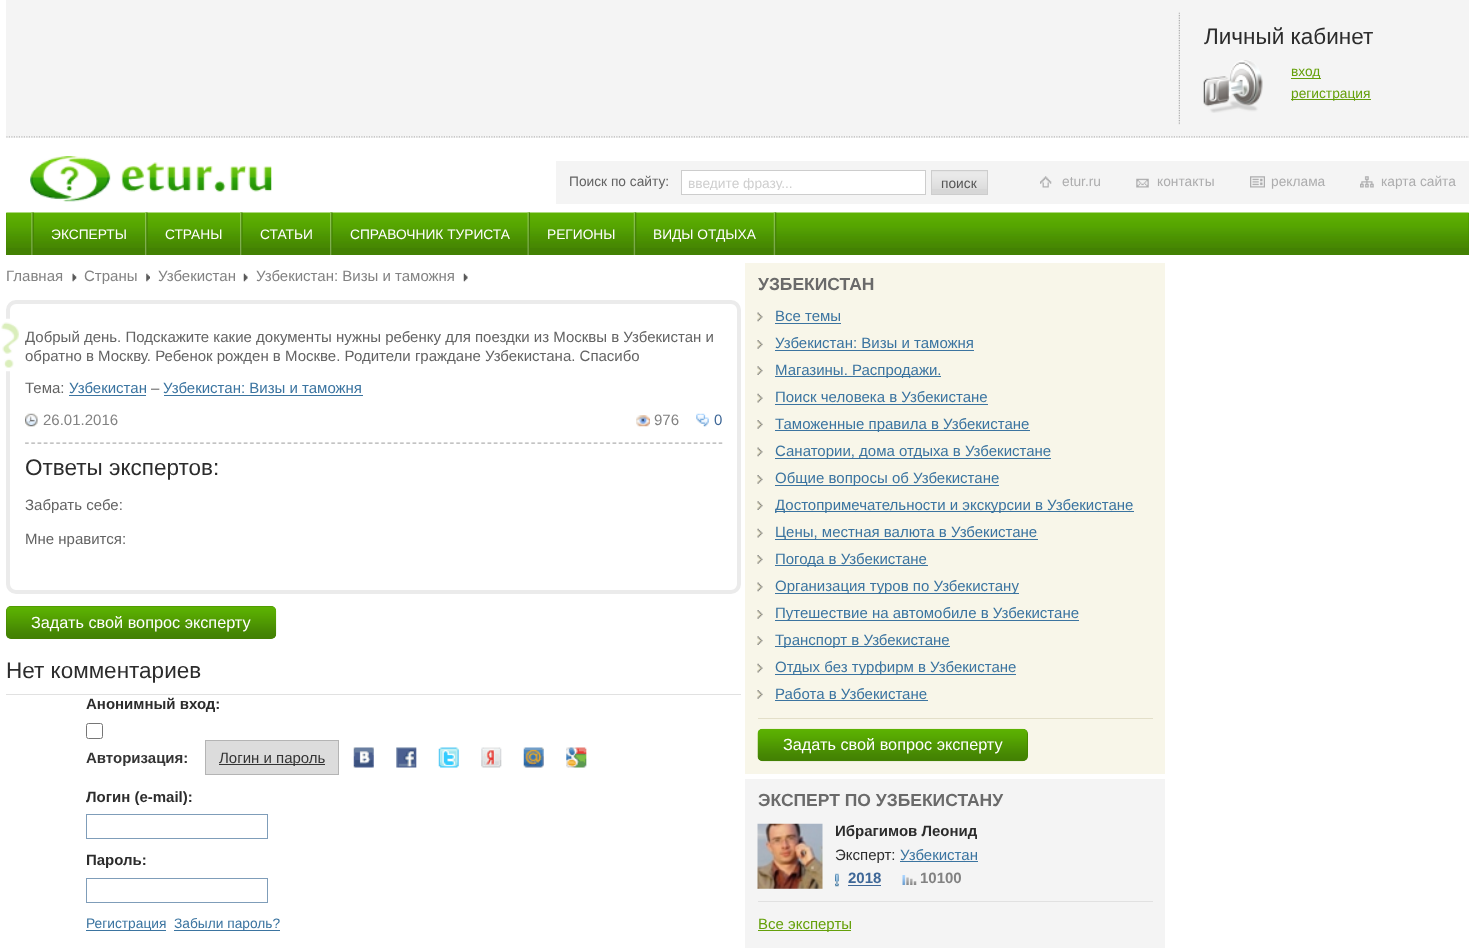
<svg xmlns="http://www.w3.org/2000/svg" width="1474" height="949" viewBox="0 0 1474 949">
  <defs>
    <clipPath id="clip1"><rect x="688" y="175" width="232" height="15"/></clipPath>
  </defs>
  <rect width="100%" height="100%" fill="rgb(255,255,255)"/>
  <rect x="6" y="0" width="1463" height="138" fill="rgb(244,244,244)"/>
  <image x="6" y="136" width="1463" height="2" href="pic1.png"/>
  <image x="1178" y="12" width="2" height="113" href="pic2.png"/>
  <text x="1204" y="44" font-family="Liberation Sans" font-size="22.5" fill="rgb(44,44,44)">Личный кабинет</text>
  <image x="1203" y="60" width="60" height="53" href="pic3.png"/>
  <rect x="1291" y="78" width="30" height="1" fill="rgb(101,160,11)"/>
  <text x="1291" y="76" font-family="Liberation Sans" font-size="13.75" fill="rgb(101,160,11)">вход</text>
  <rect x="1291" y="99" width="80" height="1" fill="rgb(101,160,11)"/>
  <text x="1291" y="98" font-family="Liberation Sans" font-size="13.75" fill="rgb(101,160,11)">регистрация</text>
  <image x="30" y="156" width="242" height="46" href="pic4.png"/>
  <rect x="556" y="161" width="913" height="43" fill="rgb(244,244,244)"/>
  <text x="569" y="186" font-family="Liberation Sans" font-size="13.75" fill="rgb(99,99,99)">Поиск по сайту:</text>
  <rect x="681.5" y="170.5" width="244" height="24" fill="rgb(255,255,255)" stroke="rgb(205,205,205)"/>
  <g clip-path="url(#clip1)">
    <text x="688" y="188" font-family="Liberation Sans" font-size="13.75" fill="rgb(207,207,207)">введите фразу...</text>
  </g>
  <rect x="932" y="171" width="55" height="23" fill="rgb(215,215,215)"/>
  <image x="932" y="171" width="55" height="18" href="pic5.png"/>
  <rect x="931.5" y="170.5" width="56" height="24" fill="none" stroke="rgb(205,205,205)"/>
  <text x="941" y="188" font-family="Liberation Sans" font-size="13.75" fill="rgb(87,87,87)">поиск</text>
  <image x="1040" y="176" width="12" height="12" href="pic6.png"/>
  <text x="1062" y="186" font-family="Liberation Sans" font-size="13.75" fill="rgb(173,173,174)">etur.ru</text>
  <image x="1136" y="178" width="13" height="10" href="pic7.png"/>
  <text x="1157" y="186" font-family="Liberation Sans" font-size="13.75" fill="rgb(173,173,174)">контакты</text>
  <image x="1250" y="176" width="15" height="12" href="pic8.png"/>
  <text x="1271" y="186" font-family="Liberation Sans" font-size="13.75" fill="rgb(173,173,174)">реклама</text>
  <image x="1360" y="176" width="14" height="12" href="pic9.png"/>
  <text x="1381" y="186" font-family="Liberation Sans" font-size="13.75" fill="rgb(173,173,174)">карта сайта</text>
  <rect x="6" y="213" width="1463" height="42" fill="rgb(67,129,3)"/>
  <image x="6" y="212" width="1463" height="36" href="pic10.png"/>
  <image x="31" y="212" width="3" height="43" href="pic11.png"/>
  <image x="145" y="212" width="3" height="43" href="pic12.png"/>
  <text x="51" y="239" font-family="Liberation Sans" font-size="13.75" fill="rgb(255,255,255)">ЭКСПЕРТЫ</text>
  <image x="240" y="212" width="3" height="43" href="pic12.png"/>
  <text x="165" y="239" font-family="Liberation Sans" font-size="13.75" fill="rgb(255,255,255)">СТРАНЫ</text>
  <image x="330" y="212" width="3" height="43" href="pic12.png"/>
  <text x="260" y="239" font-family="Liberation Sans" font-size="13.75" fill="rgb(255,255,255)">СТАТЬИ</text>
  <image x="527" y="212" width="3" height="43" href="pic13.png"/>
  <text x="350" y="239" font-family="Liberation Sans" font-size="13.75" fill="rgb(255,255,255)">СПРАВОЧНИК ТУРИСТА</text>
  <image x="633" y="212" width="4" height="43" href="pic14.png"/>
  <text x="547" y="239" font-family="Liberation Sans" font-size="13.75" fill="rgb(255,255,255)">РЕГИОНЫ</text>
  <image x="773" y="212" width="4" height="43" href="pic14.png"/>
  <text x="653" y="239" font-family="Liberation Sans" font-size="13.75" fill="rgb(255,255,255)">ВИДЫ ОТДЫХА</text>
  <text x="6" y="281" font-family="Liberation Sans" font-size="15" fill="rgb(130,130,130)">Главная</text>
  <image x="72" y="273" width="5" height="9" href="pic15.png"/>
  <text x="84" y="281" font-family="Liberation Sans" font-size="15" fill="rgb(130,130,130)">Страны</text>
  <image x="146" y="273" width="4" height="9" href="pic16.png"/>
  <text x="158" y="281" font-family="Liberation Sans" font-size="15" fill="rgb(130,130,130)">Узбекистан</text>
  <image x="243" y="273" width="5" height="9" href="pic17.png"/>
  <text x="256" y="281" font-family="Liberation Sans" font-size="15" fill="rgb(130,130,130)">Узбекистан: Визы и таможня</text>
  <image x="463" y="273" width="5" height="9" href="pic17.png"/>
  <rect x="8" y="302" width="731" height="290" rx="8" fill="none" stroke="rgb(235,235,235)" stroke-width="4"/>
  <image x="1" y="318" width="18" height="54" href="pic18.png"/>
  <g font-family="Liberation Sans" font-size="15" fill="rgb(99,99,99)">
    <text>
      <tspan x="25" y="342">Добрый день. Подскажите какие документы нужны ребенку для поездки из Москвы в Узбекистан и</tspan>
      <tspan x="25" y="361">обратно в Москву. Ребенок рожден в Москве. Родители граждане Узбекистана. Спасибо</tspan>
    </text>
    <text x="25" y="393">Тема:</text>
  </g>
  <text x="69" y="393" font-family="Liberation Sans" font-size="15" fill="rgb(59,116,160)">Узбекистан</text>
  <rect x="69" y="395" width="77" height="1" fill="rgb(59,116,160)"/>
  <text x="151" y="393" font-family="Liberation Sans" font-size="15" fill="rgb(99,99,99)">–</text>
  <text x="163" y="393" font-family="Liberation Sans" font-size="15" fill="rgb(59,116,160)">Узбекистан: Визы и таможня</text>
  <rect x="164" y="395" width="199" height="1" fill="rgb(59,116,160)"/>
  <image x="25" y="442" width="698" height="2" href="pic19.png"/>
  <image x="25" y="413" width="13" height="14" href="pic20.png"/>
  <text x="43" y="425" font-family="Liberation Sans" font-size="15" fill="rgb(130,130,130)">26.01.2016</text>
  <image x="636" y="415" width="14" height="12" href="pic21.png"/>
  <text x="654" y="425" font-family="Liberation Sans" font-size="15" fill="rgb(130,130,130)">976</text>
  <image x="696" y="413" width="13" height="14" href="pic22.png"/>
  <text x="714" y="425" font-family="Liberation Sans" font-size="15" fill="rgb(62,103,151)">0</text>
  <text x="25" y="475" font-family="Liberation Sans" font-size="22.5" fill="rgb(44,44,44)">Ответы экспертов:</text>
  <g font-family="Liberation Sans" font-size="15" fill="rgb(99,99,99)">
    <text x="25" y="510">Забрать себе:</text>
    <text x="25" y="544">Мне нравится:</text>
  </g>
  <rect x="6" y="606" width="270" height="33" rx="5" fill="rgb(67,129,3)"/>
  <image x="6" y="606" width="271" height="33" href="pic23.png"/>
  <text x="31" y="628" font-family="Liberation Sans" font-size="16.25" fill="rgb(255,255,255)">Задать свой вопрос эксперту</text>
  <text x="6" y="678" font-family="Liberation Sans" font-size="22.5" fill="rgb(44,44,44)">Нет комментариев</text>
  <rect x="6" y="694" width="735" height="1" fill="rgb(225,225,225)"/>
  <text x="86" y="709" font-family="Liberation Sans" font-size="15" font-weight="bold" fill="rgb(44,44,44)">Анонимный вход:</text>
  <rect x="86.5" y="723.5" width="16" height="15" rx="2" fill="none" stroke="rgb(118,118,118)"/>
  <text x="86" y="763" font-family="Liberation Sans" font-size="15" font-weight="bold" fill="rgb(52,52,52)">Авторизация:</text>
  <rect x="205.5" y="740.5" width="133" height="34" fill="rgb(220,220,220)" stroke="rgb(180,180,180)"/>
  <rect x="219" y="764" width="106" height="1" fill="rgb(52,52,52)"/>
  <text x="219" y="763" font-family="Liberation Sans" font-size="15" fill="rgb(52,52,52)">Логин и пароль</text>
  <image x="353" y="747" width="21" height="21" href="pic24.png"/>
  <image x="396" y="747" width="21" height="21" href="pic25.png"/>
  <image x="438" y="747" width="21" height="21" href="pic26.png"/>
  <image x="481" y="747" width="21" height="21" href="pic27.png"/>
  <image x="523" y="747" width="21" height="21" href="pic28.png"/>
  <image x="566" y="747" width="21" height="21" href="pic29.png"/>
  <text x="86" y="802" font-family="Liberation Sans" font-size="15" font-weight="bold" fill="rgb(44,44,44)">Логин (e-mail):</text>
  <rect x="86.5" y="814.5" width="181" height="24" fill="none" stroke="rgb(127,157,185)"/>
  <text x="86" y="865" font-family="Liberation Sans" font-size="15" font-weight="bold" fill="rgb(44,44,44)">Пароль:</text>
  <rect x="86.5" y="878.5" width="181" height="24" fill="none" stroke="rgb(127,157,185)"/>
  <rect x="86" y="930" width="80" height="1" fill="rgb(59,116,160)"/>
  <text x="86" y="928" font-family="Liberation Sans" font-size="13.75" fill="rgb(59,116,160)">Регистрация</text>
  <rect x="174" y="930" width="106" height="1" fill="rgb(59,116,160)"/>
  <text x="174" y="928" font-family="Liberation Sans" font-size="13.75" fill="rgb(59,116,160)">Забыли пароль?</text>
  <rect x="745" y="263" width="420" height="511" fill="rgb(248,246,233)"/>
  <text x="758" y="290" font-family="Liberation Sans" font-size="17.5" font-weight="bold" fill="rgb(106,106,106)">УЗБЕКИСТАН</text>
  <rect x="758" y="718" width="395" height="1" fill="rgb(227,223,201)"/>
  <image x="757" y="312" width="6" height="10" href="pic30.png"/>
  <text x="775" y="321" font-family="Liberation Sans" font-size="15" fill="rgb(59,116,160)">Все темы</text>
  <rect x="775" y="323" width="66" height="1" fill="rgb(59,116,160)"/>
  <image x="757" y="340" width="6" height="9" href="pic31.png"/>
  <text x="775" y="348" font-family="Liberation Sans" font-size="15" fill="rgb(59,116,160)">Узбекистан: Визы и таможня</text>
  <rect x="775" y="350" width="199" height="1" fill="rgb(59,116,160)"/>
  <image x="757" y="366" width="6" height="9" href="pic32.png"/>
  <rect x="775" y="376" width="166" height="1" fill="rgb(59,116,160)"/>
  <text x="775" y="375" font-family="Liberation Sans" font-size="15" fill="rgb(59,116,160)">Магазины. Распродажи.</text>
  <image x="757" y="393" width="6" height="10" href="pic33.png"/>
  <text x="775" y="402" font-family="Liberation Sans" font-size="15" fill="rgb(59,116,160)">Поиск человека в Узбекистане</text>
  <rect x="775" y="404" width="213" height="1" fill="rgb(59,116,160)"/>
  <image x="757" y="420" width="6" height="9" href="pic31.png"/>
  <rect x="775" y="430" width="255" height="1" fill="rgb(59,116,160)"/>
  <text x="775" y="429" font-family="Liberation Sans" font-size="15" fill="rgb(59,116,160)">Таможенные правила в Узбекистане</text>
  <image x="757" y="447" width="6" height="10" href="pic30.png"/>
  <rect x="775" y="458" width="276" height="1" fill="rgb(59,116,160)"/>
  <text x="775" y="456" font-family="Liberation Sans" font-size="15" fill="rgb(59,116,160)">Санатории, дома отдыха в Узбекистане</text>
  <image x="757" y="475" width="6" height="9" href="pic31.png"/>
  <rect x="775" y="485" width="224" height="1" fill="rgb(59,116,160)"/>
  <text x="775" y="483" font-family="Liberation Sans" font-size="15" fill="rgb(59,116,160)">Общие вопросы об Узбекистане</text>
  <image x="757" y="501" width="6" height="9" href="pic32.png"/>
  <rect x="775" y="511" width="359" height="1" fill="rgb(59,116,160)"/>
  <text x="775" y="510" font-family="Liberation Sans" font-size="15" fill="rgb(59,116,160)">Достопримечательности и экскурсии в Узбекистане</text>
  <image x="757" y="528" width="6" height="10" href="pic33.png"/>
  <rect x="775" y="539" width="263" height="1" fill="rgb(59,116,160)"/>
  <text x="775" y="537" font-family="Liberation Sans" font-size="15" fill="rgb(59,116,160)">Цены, местная валюта в Узбекистане</text>
  <image x="757" y="555" width="6" height="9" href="pic31.png"/>
  <rect x="775" y="565" width="153" height="1" fill="rgb(59,116,160)"/>
  <text x="775" y="564" font-family="Liberation Sans" font-size="15" fill="rgb(59,116,160)">Погода в Узбекистане</text>
  <image x="757" y="582" width="6" height="10" href="pic30.png"/>
  <rect x="775" y="593" width="244" height="1" fill="rgb(59,116,160)"/>
  <text x="775" y="591" font-family="Liberation Sans" font-size="15" fill="rgb(59,116,160)">Организация туров по Узбекистану</text>
  <image x="757" y="610" width="6" height="9" href="pic31.png"/>
  <rect x="775" y="620" width="304" height="1" fill="rgb(59,116,160)"/>
  <text x="775" y="618" font-family="Liberation Sans" font-size="15" fill="rgb(59,116,160)">Путешествие на автомобиле в Узбекистане</text>
  <image x="757" y="636" width="6" height="9" href="pic32.png"/>
  <rect x="775" y="646" width="175" height="1" fill="rgb(59,116,160)"/>
  <text x="775" y="645" font-family="Liberation Sans" font-size="15" fill="rgb(59,116,160)">Транспорт в Узбекистане</text>
  <image x="757" y="663" width="6" height="10" href="pic33.png"/>
  <rect x="775" y="674" width="241" height="1" fill="rgb(59,116,160)"/>
  <text x="775" y="672" font-family="Liberation Sans" font-size="15" fill="rgb(59,116,160)">Отдых без турфирм в Узбекистане</text>
  <image x="757" y="690" width="6" height="9" href="pic31.png"/>
  <text x="775" y="699" font-family="Liberation Sans" font-size="15" fill="rgb(59,116,160)">Работа в Узбекистане</text>
  <rect x="775" y="700" width="153" height="1" fill="rgb(59,116,160)"/>
  <rect x="758" y="729" width="270" height="32" rx="5" fill="rgb(67,129,3)"/>
  <image x="757" y="728" width="271" height="34" href="pic34.png"/>
  <text x="783" y="750" font-family="Liberation Sans" font-size="16.25" fill="rgb(255,255,255)">Задать свой вопрос эксперту</text>
  <rect x="745" y="779" width="420" height="169" fill="rgb(244,244,244)"/>
  <text x="758" y="806" font-family="Liberation Sans" font-size="17.5" font-weight="bold" fill="rgb(106,106,106)">ЭКСПЕРТ ПО УЗБЕКИСТАНУ</text>
  <rect x="758" y="901" width="395" height="1" fill="rgb(225,225,225)"/>
  <image x="757" y="823" width="66" height="66" href="pic35.png"/>
  <text x="835" y="836" font-family="Liberation Sans" font-size="15" font-weight="bold" fill="rgb(44,44,44)">Ибрагимов Леонид</text>
  <text x="835" y="860" font-family="Liberation Sans" font-size="15" fill="rgb(44,44,44)">Эксперт:</text>
  <text x="900" y="860" font-family="Liberation Sans" font-size="15" fill="rgb(59,116,160)">Узбекистан</text>
  <rect x="900" y="861" width="78" height="1" fill="rgb(59,116,160)"/>
  <image x="835" y="873" width="4" height="14" href="pic36.png"/>
  <text x="848" y="883" font-family="Liberation Sans" font-size="15" font-weight="bold" fill="rgb(62,103,151)">2018</text>
  <rect x="848" y="885" width="33" height="1" fill="rgb(62,103,151)"/>
  <image x="902" y="875" width="15" height="10" href="pic37.png"/>
  <text x="920" y="883" font-family="Liberation Sans" font-size="15" font-weight="bold" fill="rgb(130,130,130)">10100</text>
  <rect x="758" y="930" width="93" height="1" fill="rgb(101,160,11)"/>
  <text x="758" y="929" font-family="Liberation Sans" font-size="15" fill="rgb(101,160,11)">Все эксперты</text>
</svg>
